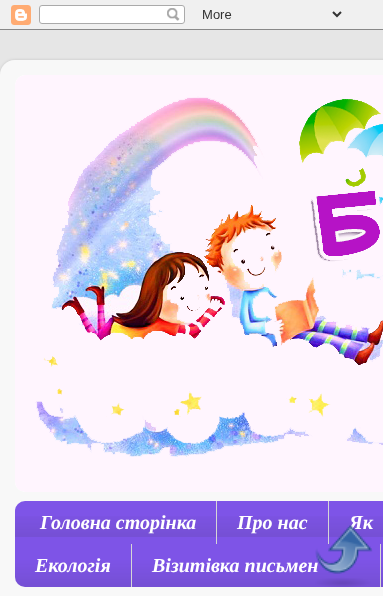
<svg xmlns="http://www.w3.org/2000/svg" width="383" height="596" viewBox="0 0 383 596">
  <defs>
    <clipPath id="clip1"><path d="M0 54H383V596H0ZM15 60H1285C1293.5 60 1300 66.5 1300 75V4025C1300 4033.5 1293.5 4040 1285 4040H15C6.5 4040 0 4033.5 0 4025V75C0 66.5 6.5 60 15 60Z" clip-rule="evenodd"/></clipPath>
  </defs>
  <rect width="100%" height="100%" fill="rgb(230,230,230)"/>
  <image x="0" y="0" width="383" height="30" href="pic1.png"/>
  <g clip-path="url(#clip1)">
    <rect x="0" y="60" width="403" height="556" rx="15" fill="rgba(0,0,0,0.15)" filter="blur(1.5px)"/>
  </g>
  <image x="0" y="60" width="383" height="536" href="pic2.png"/>
  <rect x="15" y="75" width="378" height="417" rx="10" fill="rgb(255,255,255)"/>
  <image x="15" y="75" width="368" height="417" href="pic3.png"/>
  <rect x="15" y="501" width="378" height="86" rx="10" fill="rgb(126,84,231)"/>
  <image x="15" y="516" width="368" height="71" href="pic4.png"/>
  <rect x="216" y="501" width="1" height="43" fill="rgb(214,214,214)"/>
  <text x="40" y="529" font-family="Liberation Serif" font-size="20" font-weight="bold" font-style="italic" fill="rgb(255,255,255)">Головна сторінка</text>
  <rect x="328" y="501" width="1" height="43" fill="rgb(214,214,214)"/>
  <g font-family="Liberation Serif" font-size="20" font-weight="bold" font-style="italic" fill="rgb(255,255,255)">
    <text x="237" y="529">Про нас</text>
    <text x="349" y="529">Як</text>
  </g>
  <rect x="131" y="544" width="1" height="43" fill="rgb(214,214,214)"/>
  <text x="35" y="572" font-family="Liberation Serif" font-size="20" font-weight="bold" font-style="italic" fill="rgb(255,255,255)">Екологія</text>
  <rect x="380" y="544" width="1" height="43" fill="rgb(214,214,214)"/>
  <text x="152" y="572" font-family="Liberation Serif" font-size="20" font-weight="bold" font-style="italic" fill="rgb(255,255,255)">Візитівка письмен</text>
  <image x="315" y="525" width="58" height="62" href="pic5.png"/>
</svg>
